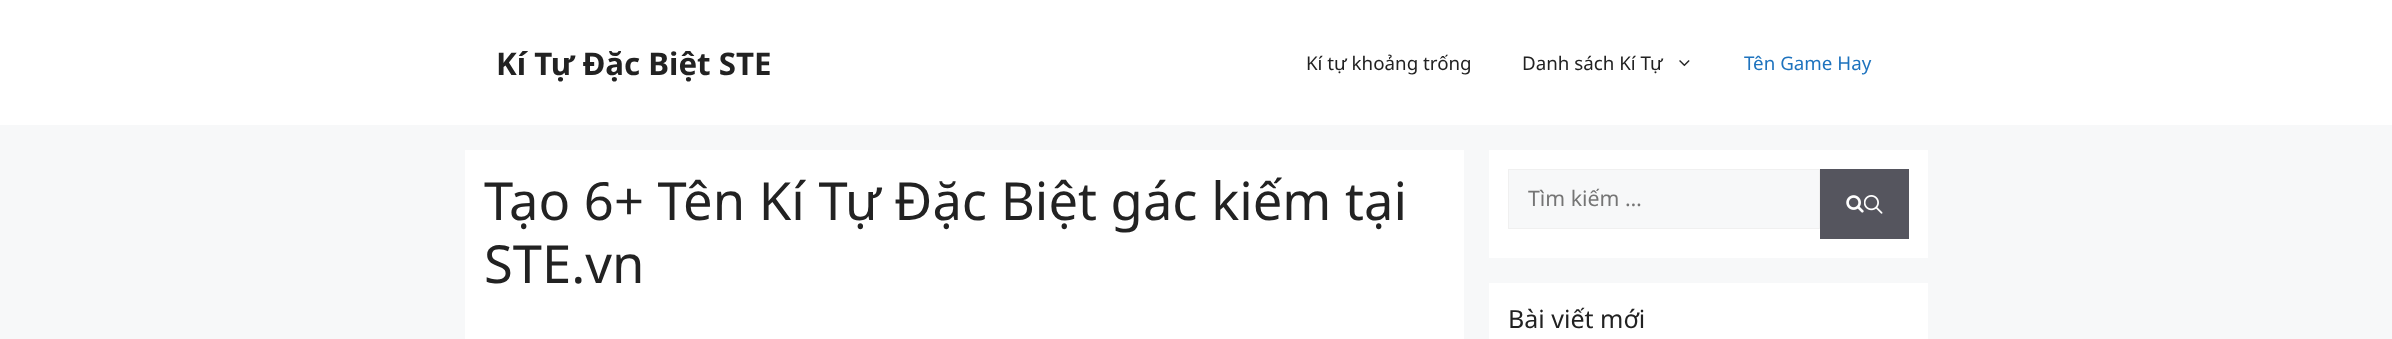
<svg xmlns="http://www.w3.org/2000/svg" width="2392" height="339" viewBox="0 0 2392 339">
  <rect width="100%" height="100%" fill="rgb(247,248,249)"/>
  <rect x="0" y="0" width="2392" height="125" fill="rgb(255,255,255)"/>
  <text x="496" y="75" font-family="Noto Sans" font-size="31.25" font-weight="bold" fill="rgb(34,34,34)">Kí Tự Đặc Biệt STE</text>
  <g font-family="Noto Sans" font-size="18.75" fill="rgb(34,34,34)">
    <text x="1306" y="70">Kí tự khoảng trống</text>
    <text x="1522" y="70">Danh sách Kí Tự</text>
  </g>
  <image x="1679" y="60" width="11" height="7" href="pic1.png"/>
  <text x="1744" y="70" font-family="Noto Sans" font-size="18.75" fill="rgb(30,115,190)">Tên Game Hay</text>
  <rect x="465" y="150" width="999" height="189" fill="rgb(255,255,255)"/>
  <g font-family="Noto Sans" font-size="52.5" fill="rgb(34,34,34)">
    <text>
      <tspan x="484" y="220">Tạo 6+ Tên Kí Tự Đặc Biệt gác kiếm tại</tspan>
      <tspan x="484" y="283">STE.vn</tspan>
    </text>
  </g>
  <rect x="1489" y="150" width="439" height="108" fill="rgb(255,255,255)"/>
  <rect x="1508.5" y="169.5" width="311" height="59" fill="rgb(247,248,249)" stroke="rgb(240,240,240)"/>
  <text x="1528" y="206" font-family="Noto Sans" font-size="21.25" fill="rgb(117,117,117)">Tìm kiếm …</text>
  <rect x="1820" y="169" width="89" height="70" fill="rgb(85,85,94)"/>
  <image x="1846" y="195" width="18" height="18" href="pic2.png"/>
  <image x="1864" y="195" width="19" height="19" href="pic3.png"/>
  <rect x="1489" y="283" width="439" height="56" fill="rgb(255,255,255)"/>
  <text x="1508" y="328" font-family="Noto Sans" font-size="25" fill="rgb(34,34,34)">Bài viết mới</text>
</svg>
